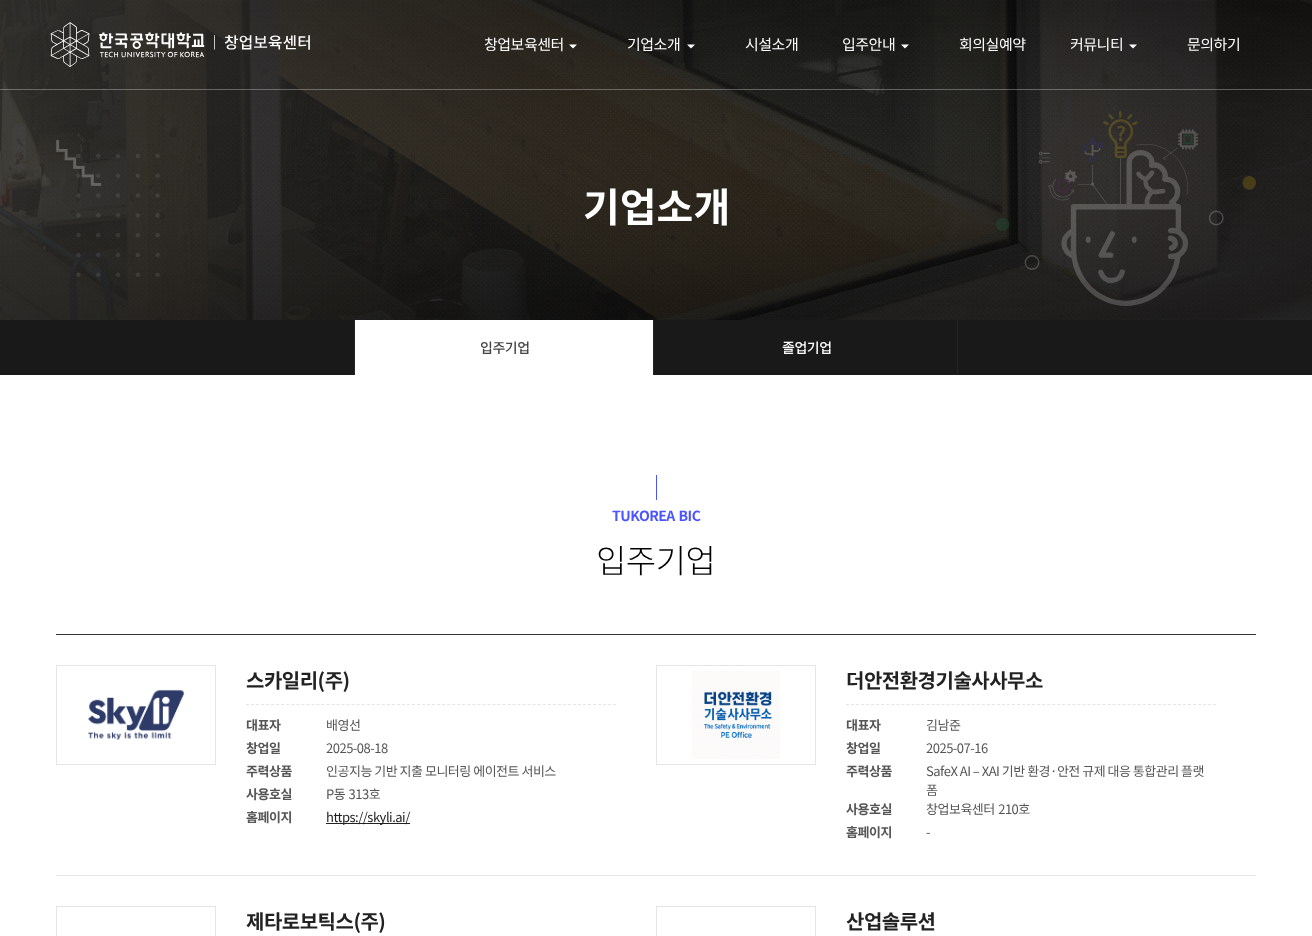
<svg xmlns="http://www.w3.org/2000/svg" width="1312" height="936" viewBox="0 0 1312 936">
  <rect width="100%" height="100%" fill="rgb(255,255,255)"/>
  <image x="0" y="0" width="1312" height="320" href="pic2.png"/>
  <rect x="0" y="89" width="1312" height="1" fill="rgba(255,255,255,0.3)"/>
  <image x="50" y="22" width="260" height="45" href="pic1.png"/>
  <text x="484" y="50" font-family="Noto Sans KR" font-size="15" letter-spacing="-0.5" fill="rgb(255,255,255)">창업보육센터</text>
  <path d="M569 44.5H577L573 48.5Z" fill="rgb(255,255,255)"/>
  <text x="627" y="50" font-family="Noto Sans KR" font-size="15" letter-spacing="-0.5" fill="rgb(255,255,255)">기업소개</text>
  <path d="M687 44.5H695L691 48.5Z" fill="rgb(255,255,255)"/>
  <g font-family="Noto Sans KR" font-size="15" letter-spacing="-0.5" fill="rgb(255,255,255)">
    <text x="745" y="50">시설소개</text>
    <text x="842" y="50">입주안내</text>
  </g>
  <path d="M901 44.5H909L905 48.5Z" fill="rgb(255,255,255)"/>
  <g font-family="Noto Sans KR" font-size="15" letter-spacing="-0.5" fill="rgb(255,255,255)">
    <text x="959" y="50">회의실예약</text>
    <text x="1070" y="50">커뮤니티</text>
  </g>
  <path d="M1129 44.5H1137L1133 48.5Z" fill="rgb(255,255,255)"/>
  <text x="1187" y="50" font-family="Noto Sans KR" font-size="15" letter-spacing="-0.5" fill="rgb(255,255,255)">문의하기</text>
  <image x="56" y="140" width="104" height="137" href="pic3.png"/>
  <text x="583" y="222" font-family="Noto Sans KR" font-size="40" font-weight="bold" fill="rgb(255,255,255)">기업소개</text>
  <image x="996" y="111" width="260" height="195" href="pic4.png"/>
  <rect x="0" y="320" width="1312" height="55" fill="rgb(25,25,25)"/>
  <rect x="653" y="320" width="1" height="55" fill="rgb(37,37,37)"/>
  <rect x="354" y="320" width="1" height="55" fill="rgb(37,37,37)"/>
  <rect x="355" y="320" width="298" height="55" fill="rgb(255,255,255)"/>
  <text x="480" y="353" font-family="Noto Sans KR" font-size="14" font-weight="500" letter-spacing="-0.5" fill="rgb(68,68,68)">입주기업</text>
  <rect x="957" y="320" width="1" height="55" fill="rgb(37,37,37)"/>
  <text x="782" y="353" font-family="Noto Sans KR" font-size="14" font-weight="500" letter-spacing="-0.5" fill="rgb(255,255,255)">졸업기업</text>
  <rect x="656" y="475" width="1" height="25" fill="rgb(74,84,255)"/>
  <text x="612" y="521" word-spacing="1" font-family="Noto Sans KR" font-size="14" font-weight="bold" letter-spacing="-0.5" fill="rgb(74,84,255)">TUKOREA BIC</text>
  <text x="596" y="573" font-family="Noto Sans KR" font-size="33" font-weight="300" letter-spacing="-0.5" fill="rgb(0,0,0)">입주기업</text>
  <rect x="56" y="634" width="1200" height="1" fill="rgb(51,51,51)"/>
  <rect x="56" y="875" width="1200" height="1" fill="rgb(229,229,229)"/>
  <rect x="56.5" y="665.5" width="159" height="99" fill="none" stroke="rgb(229,229,229)"/>
  <image x="87" y="689" width="98" height="51" href="pic5.png"/>
  <path d="M246 704.5H616" fill="none" stroke="rgb(229,229,229)" stroke-dasharray="3 2.03"/>
  <text x="246" y="688" font-family="Noto Sans KR" font-size="20" font-weight="bold" letter-spacing="-0.5" fill="rgb(34,34,34)">스카일리(주)</text>
  <text x="246" y="730" font-family="Noto Sans KR" font-size="13" font-weight="bold" letter-spacing="-0.5" fill="rgb(85,85,85)">대표자</text>
  <text x="326" y="730" font-family="Noto Sans KR" font-size="13" letter-spacing="-0.5" fill="rgb(85,85,85)">배영선</text>
  <text x="246" y="753" font-family="Noto Sans KR" font-size="13" font-weight="bold" letter-spacing="-0.5" fill="rgb(85,85,85)">창업일</text>
  <text x="326" y="753" font-family="Noto Sans KR" font-size="13" letter-spacing="-0.5" fill="rgb(85,85,85)">2025-08-18</text>
  <text x="246" y="776" font-family="Noto Sans KR" font-size="13" font-weight="bold" letter-spacing="-0.5" fill="rgb(85,85,85)">주력상품</text>
  <text x="326" y="776" font-family="Noto Sans KR" font-size="13" letter-spacing="-0.5" fill="rgb(85,85,85)">인공지능 기반 지출 모니터링 에이전트 서비스</text>
  <text x="246" y="799" font-family="Noto Sans KR" font-size="13" font-weight="bold" letter-spacing="-0.5" fill="rgb(85,85,85)">사용호실</text>
  <text x="326" y="799" word-spacing="1" font-family="Noto Sans KR" font-size="13" letter-spacing="-0.5" fill="rgb(85,85,85)">P동 313호</text>
  <text x="246" y="822" font-family="Noto Sans KR" font-size="13" font-weight="bold" letter-spacing="-0.5" fill="rgb(85,85,85)">홈페이지</text>
  <rect x="326" y="823" width="84" height="1" fill="rgb(34,34,34)"/>
  <text x="326" y="822" font-family="Noto Sans KR" font-size="13" letter-spacing="-0.5" fill="rgb(34,34,34)">https://skyli.ai/</text>
  <rect x="656.5" y="665.5" width="159" height="99" fill="none" stroke="rgb(229,229,229)"/>
  <image x="692" y="671" width="88" height="88" href="pic6.png"/>
  <path d="M846 704.5H1216" fill="none" stroke="rgb(229,229,229)" stroke-dasharray="3 2.03"/>
  <text x="846" y="688" font-family="Noto Sans KR" font-size="20" font-weight="bold" letter-spacing="-0.5" fill="rgb(34,34,34)">더안전환경기술사사무소</text>
  <text x="846" y="730" font-family="Noto Sans KR" font-size="13" font-weight="bold" letter-spacing="-0.5" fill="rgb(85,85,85)">대표자</text>
  <text x="926" y="730" font-family="Noto Sans KR" font-size="13" letter-spacing="-0.5" fill="rgb(85,85,85)">김남준</text>
  <text x="846" y="753" font-family="Noto Sans KR" font-size="13" font-weight="bold" letter-spacing="-0.5" fill="rgb(85,85,85)">창업일</text>
  <text x="926" y="753" font-family="Noto Sans KR" font-size="13" letter-spacing="-0.5" fill="rgb(85,85,85)">2025-07-16</text>
  <text x="846" y="776" font-family="Noto Sans KR" font-size="13" font-weight="bold" letter-spacing="-0.5" fill="rgb(85,85,85)">주력상품</text>
  <g font-family="Noto Sans KR" font-size="13" letter-spacing="-0.5" fill="rgb(85,85,85)">
    <text>
      <tspan x="926" y="776">SafeX AI – XAI 기반 환경·안전 규제 대응 통합관리 플랫</tspan>
      <tspan x="926" y="795">폼</tspan>
    </text>
  </g>
  <text x="846" y="814" font-family="Noto Sans KR" font-size="13" font-weight="bold" letter-spacing="-0.5" fill="rgb(85,85,85)">사용호실</text>
  <text x="926" y="814" word-spacing="1" font-family="Noto Sans KR" font-size="13" letter-spacing="-0.5" fill="rgb(85,85,85)">창업보육센터 210호</text>
  <text x="846" y="837" font-family="Noto Sans KR" font-size="13" font-weight="bold" letter-spacing="-0.5" fill="rgb(85,85,85)">홈페이지</text>
  <text x="926" y="837" font-family="Noto Sans KR" font-size="13" letter-spacing="-0.5" fill="rgb(85,85,85)">-</text>
  <rect x="56.5" y="906.5" width="159" height="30" fill="none" stroke="rgb(229,229,229)"/>
  <text x="246" y="929" font-family="Noto Sans KR" font-size="20" font-weight="bold" letter-spacing="-0.5" fill="rgb(34,34,34)">제타로보틱스(주)</text>
  <rect x="656.5" y="906.5" width="159" height="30" fill="none" stroke="rgb(229,229,229)"/>
  <text x="846" y="929" font-family="Noto Sans KR" font-size="20" font-weight="bold" letter-spacing="-0.5" fill="rgb(34,34,34)">산업솔루션</text>
</svg>
